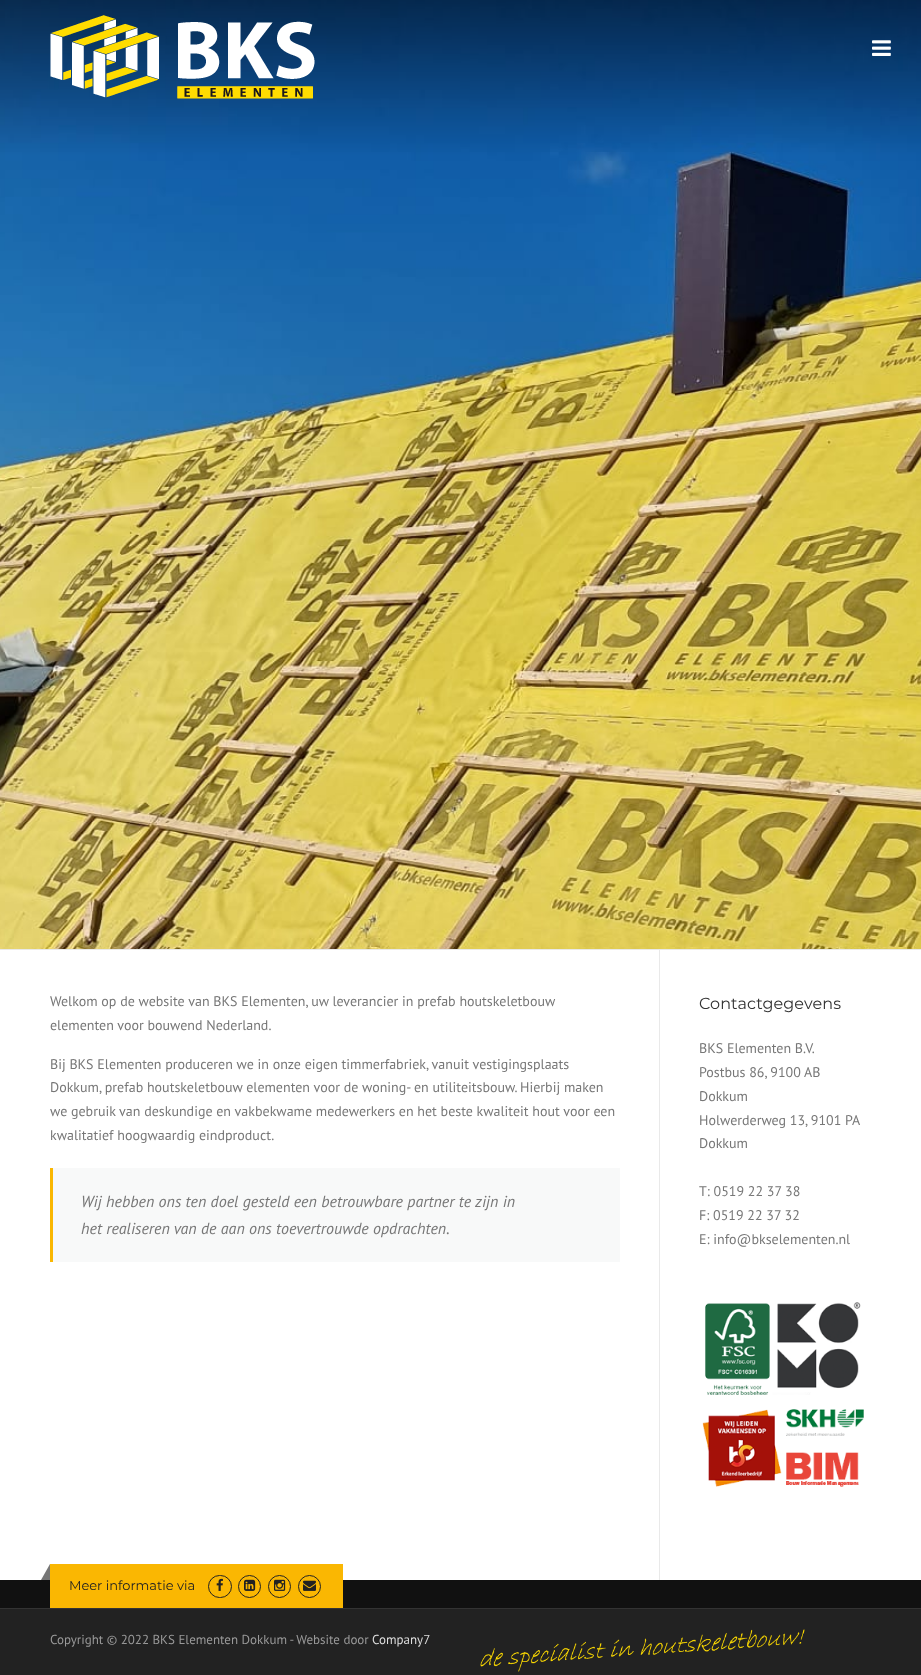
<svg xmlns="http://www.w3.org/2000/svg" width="921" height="1675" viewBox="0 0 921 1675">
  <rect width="100%" height="100%" fill="rgb(255,255,255)"/>
  <image x="0" y="0" width="921" height="949" href="pic3.png"/>
  <image x="50" y="15" width="265" height="84" href="pic1.png"/>
  <image x="872" y="40" width="19" height="16" href="pic2.png"/>
  <rect x="0" y="949" width="921" height="1" fill="rgb(233,233,233)"/>
  <g font-family="PT Sans" font-size="14" fill="rgb(119,119,119)">
    <text>
      <tspan x="50" y="1006">Welkom op de website van BKS Elementen, uw leverancier in prefab houtskeletbouw</tspan>
      <tspan x="50" y="1030">elementen voor bouwend Nederland.</tspan>
    </text>
    <text>
      <tspan x="50" y="1069">Bij BKS Elementen produceren we in onze eigen timmerfabriek, vanuit vestigingsplaats</tspan>
      <tspan x="50" y="1092">Dokkum, prefab houtskeletbouw elementen voor de woning- en utiliteitsbouw. Hierbij maken</tspan>
      <tspan x="50" y="1116">we gebruik van deskundige en vakbekwame medewerkers en het beste kwaliteit hout voor een</tspan>
      <tspan x="50" y="1140">kwalitatief hoogwaardig eindproduct.</tspan>
    </text>
  </g>
  <rect x="53" y="1168" width="567" height="94" fill="rgb(248,249,249)"/>
  <rect x="50" y="1168" width="3" height="94" fill="rgb(250,183,2)"/>
  <g font-family="PT Sans" font-size="16" font-style="italic" fill="rgb(119,119,119)">
    <text>
      <tspan x="81" y="1207">Wij hebben ons ten doel gesteld een betrouwbare partner te zijn in</tspan>
      <tspan x="81" y="1234">het realiseren van de aan ons toevertrouwde opdrachten.</tspan>
    </text>
  </g>
  <rect x="659" y="950" width="1" height="630" fill="rgb(233,233,233)"/>
  <text x="699" y="1009" font-family="Montserrat" font-size="16" letter-spacing="0.1" fill="rgb(51,51,51)">Contactgegevens</text>
  <g font-family="PT Sans" font-size="14" fill="rgb(119,119,119)">
    <text>
      <tspan x="699" y="1053">BKS Elementen B.V.</tspan>
      <tspan x="699" y="1077">Postbus 86, 9100 AB</tspan>
      <tspan x="699" y="1101">Dokkum</tspan>
      <tspan x="699" y="1125">Holwerderweg 13, 9101 PA</tspan>
      <tspan x="699" y="1148">Dokkum</tspan>
    </text>
    <text>
      <tspan x="699" y="1196">T: 0519 22 37 38</tspan>
      <tspan x="699" y="1220">F: 0519 22 37 32</tspan>
      <tspan x="699" y="1244">E: info@bkselementen.nl</tspan>
    </text>
  </g>
  <image x="705" y="1302" width="156" height="93" href="pic4.png"/>
  <image x="702" y="1409" width="162" height="78" href="pic5.png"/>
  <rect x="0" y="1580" width="921" height="28" fill="rgb(17,17,17)"/>
  <rect x="50" y="1564" width="293" height="44" fill="rgb(250,183,2)"/>
  <path d="M50 1564V1580H41Z" fill="rgb(119,119,119)"/>
  <text x="69" y="1590" font-family="Montserrat" font-size="13" fill="rgb(34,34,34)">Meer informatie via</text>
  <rect x="208.5" y="1575.5" width="23" height="22" rx="11" fill="none" stroke="rgb(34,34,34)"/>
  <image x="216" y="1578" width="7" height="13" href="pic6.png"/>
  <circle cx="249.5" cy="1586.5" r="11" fill="none" stroke="rgb(34,34,34)"/>
  <image x="244" y="1579" width="12" height="12" href="pic7.png"/>
  <circle cx="279.5" cy="1586.5" r="11" fill="none" stroke="rgb(34,34,34)"/>
  <image x="274" y="1579" width="12" height="12" href="pic8.png"/>
  <circle cx="309.5" cy="1586.5" r="11" fill="none" stroke="rgb(34,34,34)"/>
  <image x="303" y="1580" width="13" height="11" href="pic9.png"/>
  <rect x="0" y="1609" width="921" height="66" fill="rgb(34,34,34)"/>
  <rect x="0" y="1608" width="921" height="1" fill="rgb(51,51,51)"/>
  <text x="50" y="1644" font-family="PT Sans" font-size="13" fill="rgb(153,153,153)">Copyright © 2022 BKS Elementen Dokkum - Website door</text>
  <text x="372" y="1644" font-family="PT Sans" font-size="13" fill="rgb(221,221,221)">Company7</text>
  <image x="480" y="1629" width="325" height="43" href="pic10.png"/>
</svg>
